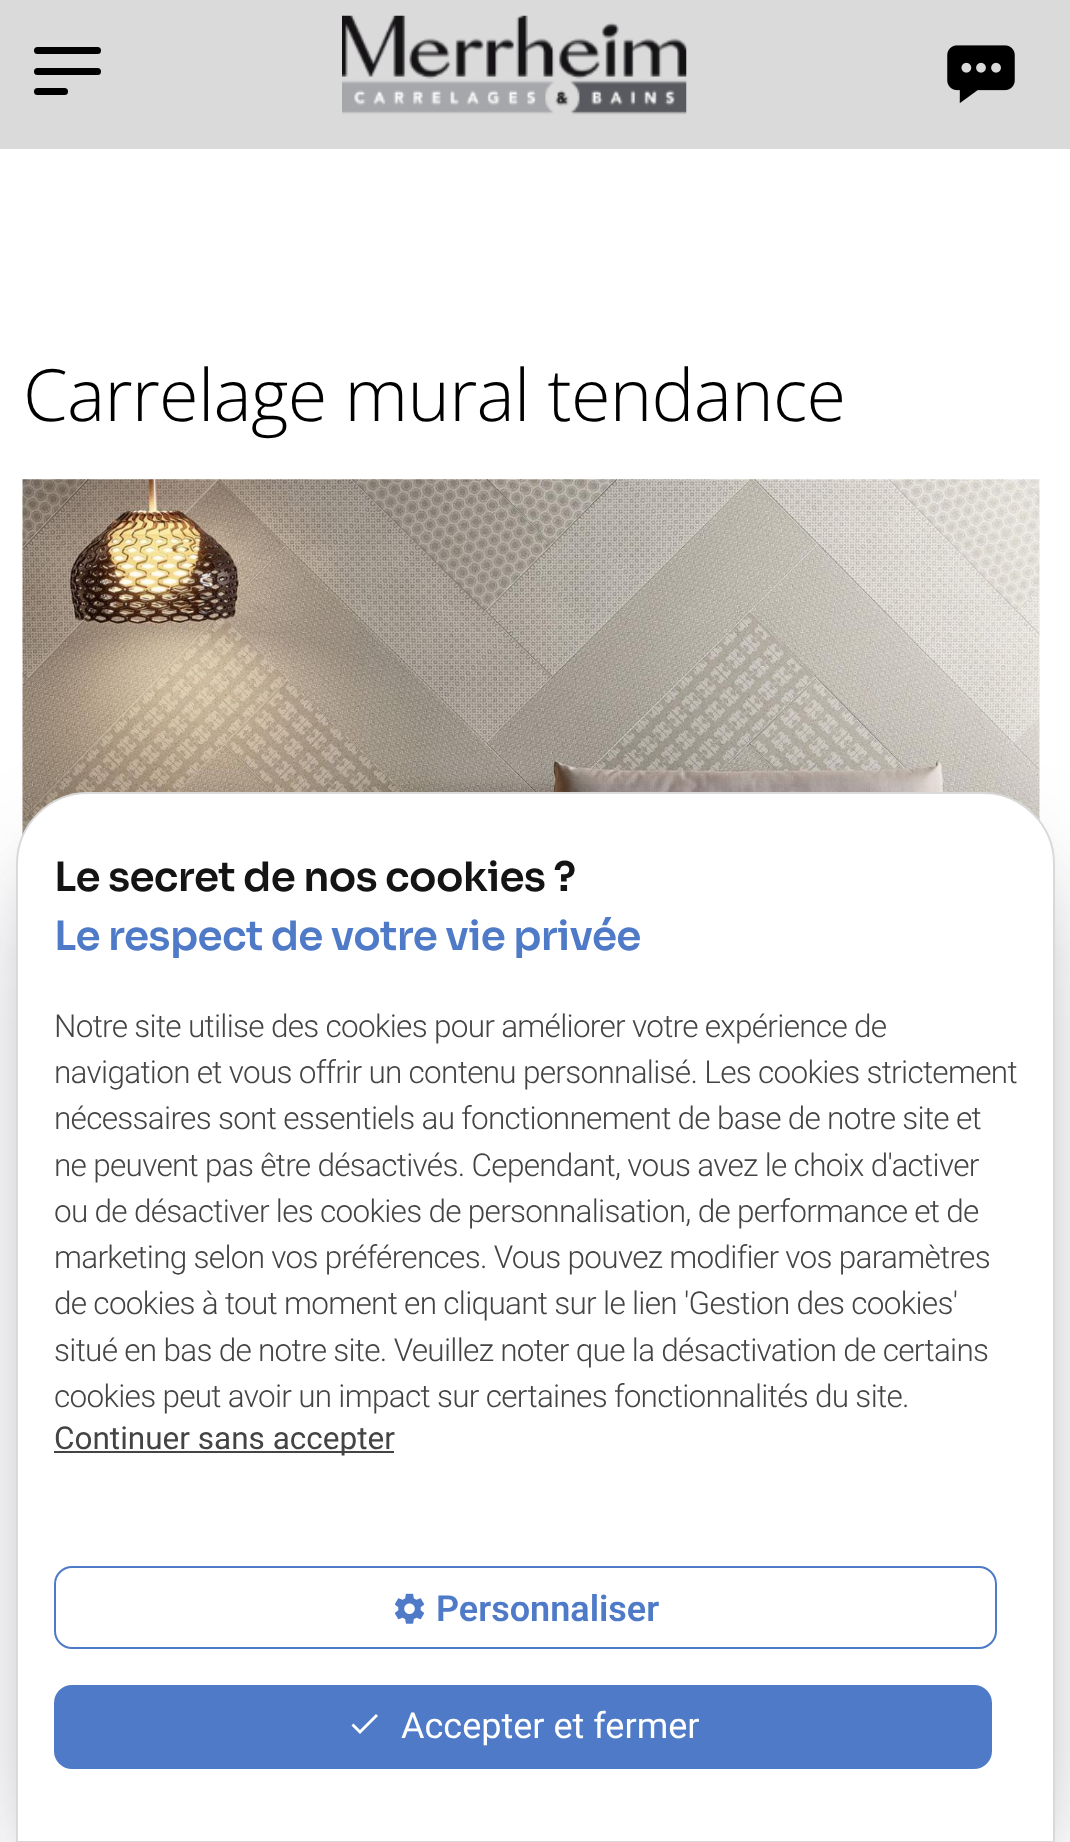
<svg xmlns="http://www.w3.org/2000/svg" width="1070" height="1842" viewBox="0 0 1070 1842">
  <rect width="100%" height="100%" fill="rgb(255,255,255)"/>
  <rect x="0" y="0" width="1070" height="149" fill="rgb(218,218,218)"/>
  <rect x="34" y="47" width="67" height="7" rx="3.5" fill="rgb(0,0,0)"/>
  <rect x="34" y="68" width="67" height="7" rx="3.5" fill="rgb(0,0,0)"/>
  <rect x="34" y="88" width="34" height="7" rx="3.5" fill="rgb(0,0,0)"/>
  <image x="342" y="15" width="345" height="100" href="pic1.png"/>
  <image x="947" y="45" width="68" height="58" href="pic2.png"/>
  <text x="23" y="421" font-family="Open Sans" font-size="72" font-weight="300" letter-spacing="-0.7" fill="rgb(0,0,0)">Carrelage mural tendance</text>
  <image x="22" y="479" width="1018" height="357" href="pic3.png"/>
  <rect x="56" y="873" width="959" height="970" rx="32" fill="rgba(0,0,0,0.3)" filter="blur(40.5px)"/>
  <rect x="43" y="887" width="985" height="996" rx="45" fill="rgba(50,50,93,0.25)" filter="blur(67.5px)"/>
  <path d="M88 793H983C1022 793 1054 825 1054 864V1842H17V864C17 825 49 793 88 793Z" fill="rgb(255,255,255)" stroke="rgb(217,217,217)" stroke-width="2"/>
  <text x="54" y="891" font-family="Sora" font-size="40.5" font-weight="600" letter-spacing="-0.7" fill="rgb(20,20,20)">Le secret de nos cookies ?</text>
  <text x="54" y="950" font-family="Sora" font-size="40.5" font-weight="600" letter-spacing="-0.7" fill="rgb(78,122,199)">Le respect de votre vie privée</text>
  <g font-family="Roboto" font-size="31.5" font-weight="300" letter-spacing="-0.7" fill="rgb(68,68,68)">
    <text>
      <tspan x="54" y="1037">Notre site utilise des cookies pour améliorer votre expérience de</tspan>
      <tspan x="54" y="1083">navigation et vous offrir un contenu personnalisé. Les cookies strictement</tspan>
      <tspan x="54" y="1129">nécessaires sont essentiels au fonctionnement de base de notre site et</tspan>
      <tspan x="54" y="1176">ne peuvent pas être désactivés. Cependant, vous avez le choix d'activer</tspan>
      <tspan x="54" y="1222">ou de désactiver les cookies de personnalisation, de performance et de</tspan>
      <tspan x="54" y="1268">marketing selon vos préférences. Vous pouvez modifier vos paramètres</tspan>
      <tspan x="54" y="1314">de cookies à tout moment en cliquant sur le lien 'Gestion des cookies'</tspan>
      <tspan x="54" y="1361">situé en bas de notre site. Veuillez noter que la désactivation de certains</tspan>
      <tspan x="54" y="1407">cookies peut avoir un impact sur certaines fonctionnalités du site.</tspan>
    </text>
  </g>
  <rect x="54" y="1451" width="340" height="2" fill="rgb(68,68,68)"/>
  <text x="54" y="1449" font-family="Roboto" font-size="31.5" fill="rgb(68,68,68)">Continuer sans accepter</text>
  <rect x="55" y="1567" width="941" height="81" rx="17" fill="none" stroke="rgb(78,122,199)" stroke-width="2"/>
  <image x="394" y="1593" width="31" height="31" href="pic4.png"/>
  <text x="436" y="1621" font-family="Roboto" font-size="36" font-weight="600" fill="rgb(78,122,199)">Personnaliser</text>
  <rect x="54" y="1685" width="938" height="84" rx="18" fill="rgb(78,122,199)"/>
  <path d="M360 1730L376 1714L378 1716L360 1734L351.5 1725.5L353.5 1723.5Z" fill="rgb(255,255,255)"/>
  <text x="401" y="1738" font-family="Roboto" font-size="36" fill="rgb(255,255,255)">Accepter et fermer</text>
</svg>
